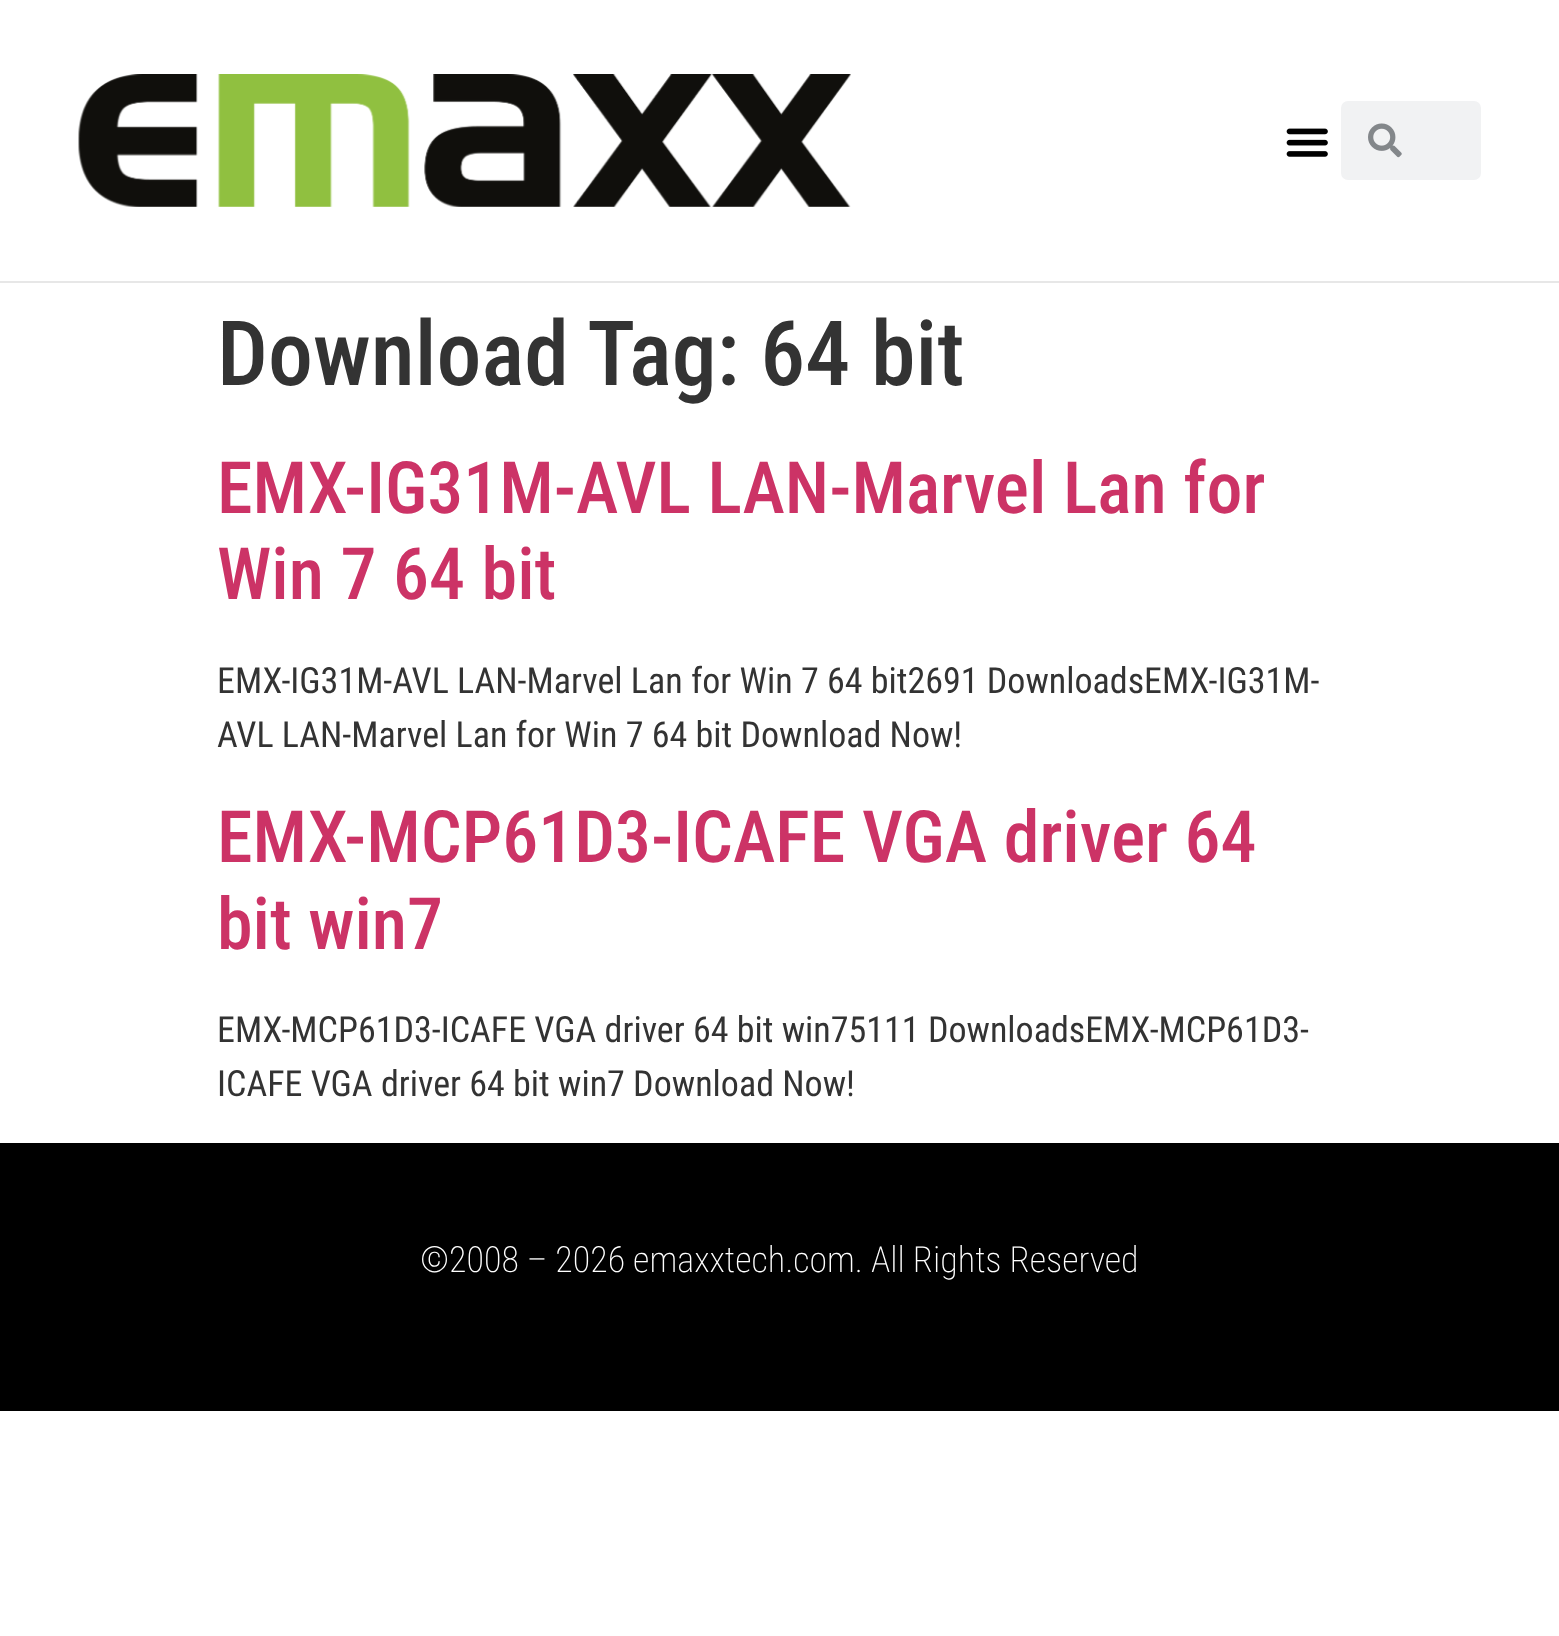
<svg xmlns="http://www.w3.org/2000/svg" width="1559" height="1636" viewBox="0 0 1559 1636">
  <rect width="100%" height="100%" fill="rgb(255,255,255)"/>
  <rect x="0" y="281" width="1559" height="2" fill="rgb(231,231,231)"/>
  <image x="78" y="74" width="773" height="133" href="pic1.png"/>
  <image x="1286" y="128" width="42" height="29" href="pic2.png"/>
  <rect x="1341" y="101" width="140" height="79" rx="7" fill="rgb(241,242,243)"/>
  <image x="1368" y="123" width="34" height="35" href="pic3.png"/>
  <text x="217" y="385" font-family="Roboto Condensed" font-size="90" font-weight="500" fill="rgb(51,51,51)">Download Tag: 64 bit</text>
  <g font-family="Roboto Condensed" font-size="72" font-weight="500" fill="rgb(204,51,102)">
    <text>
      <tspan x="217" y="513">EMX-IG31M-AVL LAN-Marvel Lan for</tspan>
      <tspan x="217" y="599">Win 7 64 bit</tspan>
    </text>
  </g>
  <g font-family="Roboto Condensed" font-size="36" fill="rgb(51,51,51)">
    <text>
      <tspan x="217" y="693">EMX-IG31M-AVL LAN-Marvel Lan for Win 7 64 bit2691 DownloadsEMX-IG31M-</tspan>
      <tspan x="217" y="747">AVL LAN-Marvel Lan for Win 7 64 bit Download Now!</tspan>
    </text>
  </g>
  <g font-family="Roboto Condensed" font-size="72" font-weight="500" fill="rgb(204,51,102)">
    <text>
      <tspan x="217" y="862">EMX-MCP61D3-ICAFE VGA driver 64</tspan>
      <tspan x="217" y="949">bit win7</tspan>
    </text>
  </g>
  <g font-family="Roboto Condensed" font-size="36" fill="rgb(51,51,51)">
    <text>
      <tspan x="217" y="1042">EMX-MCP61D3-ICAFE VGA driver 64 bit win75111 DownloadsEMX-MCP61D3-</tspan>
      <tspan x="217" y="1096">ICAFE VGA driver 64 bit win7 Download Now!</tspan>
    </text>
  </g>
  <rect x="0" y="1143" width="1559" height="268" fill="rgb(0,0,0)"/>
  <text x="420" y="1272" font-family="Roboto Condensed" font-size="36" font-weight="200" fill="rgb(255,255,255)">©2008 – 2026 emaxxtech.com. All Rights Reserved</text>
</svg>
